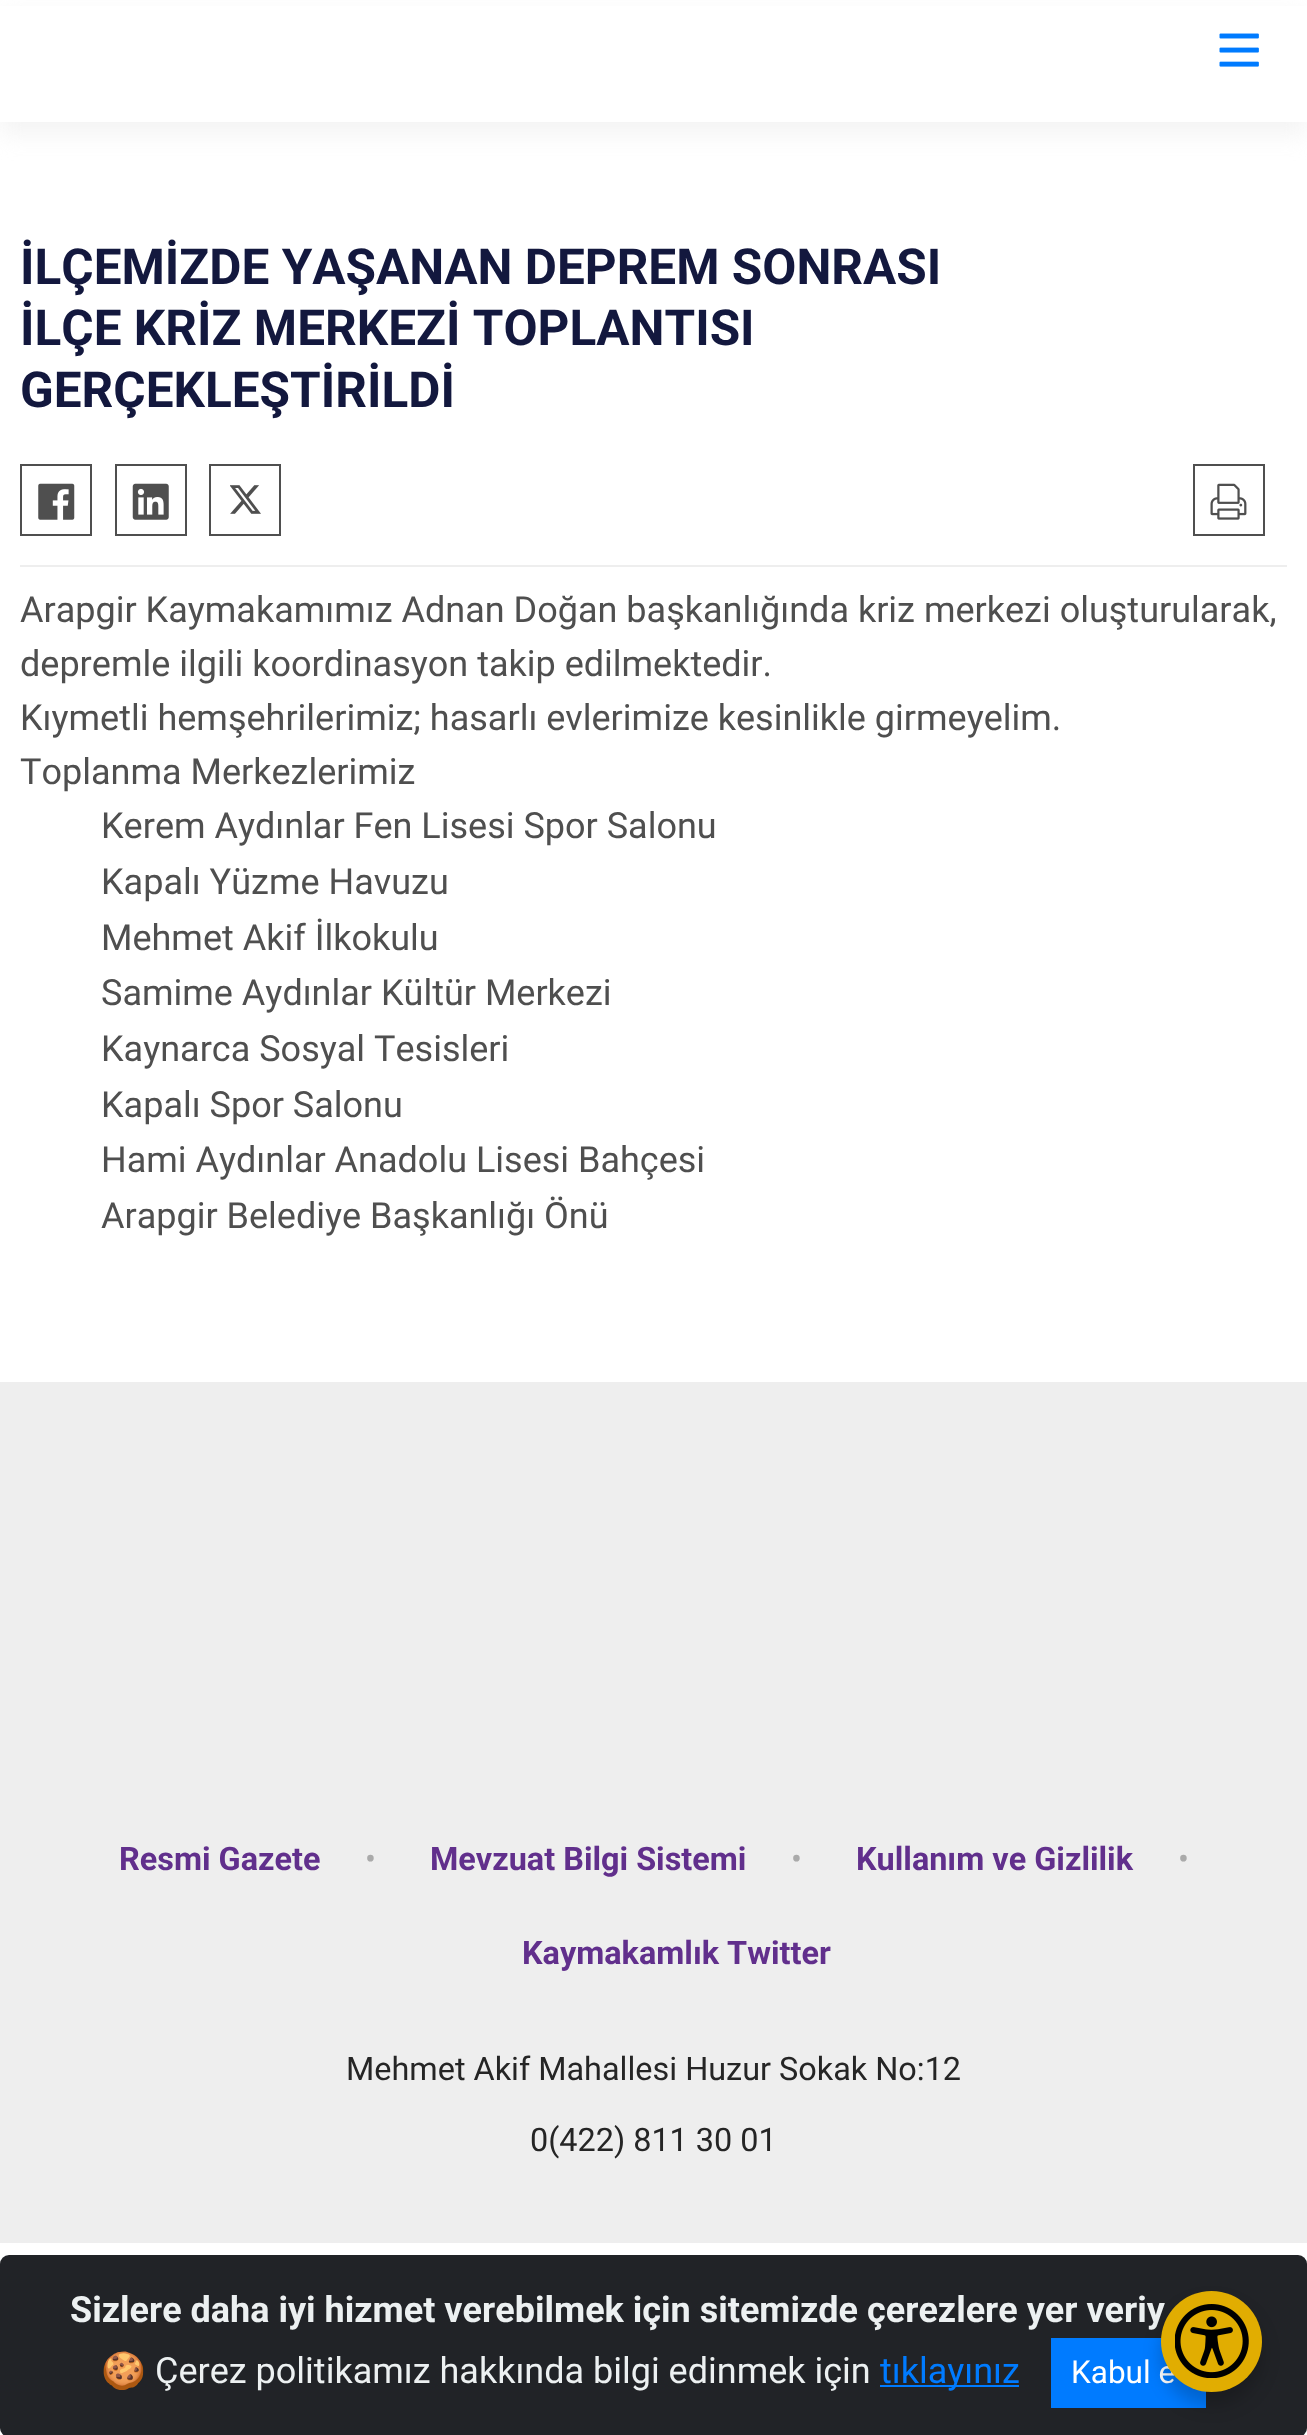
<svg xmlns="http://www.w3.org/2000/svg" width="1307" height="2435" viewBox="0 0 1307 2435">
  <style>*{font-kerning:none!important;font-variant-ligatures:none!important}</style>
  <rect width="100%" height="100%" fill="rgb(255,255,255)"/>
  <rect x="0" y="14" width="1307" height="121" fill="rgba(238,238,238,0.62)" filter="blur(11px)"/>
  <rect x="0" y="6" width="1307" height="116" fill="rgb(255,255,255)"/>
  <image x="1219" y="33" width="40" height="34" href="pic1.png"/>
  <rect x="20" y="565" width="1267" height="2" fill="rgb(238,238,238)"/>
  <g font-family="Roboto" font-size="49.5" font-weight="bold" fill="rgb(19,24,62)">
    <text>
      <tspan x="20" y="284">İLÇEMİZDE YAŞANAN DEPREM SONRASI</tspan>
      <tspan x="20" y="345">İLÇE KRİZ MERKEZİ TOPLANTISI</tspan>
      <tspan x="20" y="407">GERÇEKLEŞTİRİLDİ</tspan>
    </text>
  </g>
  <rect x="21" y="465" width="70" height="70" fill="none" stroke="rgb(79,79,79)" stroke-width="2"/>
  <image x="38" y="483" width="37" height="37" href="pic2.png"/>
  <rect x="116" y="465" width="70" height="70" fill="none" stroke="rgb(79,79,79)" stroke-width="2"/>
  <image x="132" y="483" width="37" height="37" href="pic3.png"/>
  <rect x="210" y="465" width="70" height="70" fill="none" stroke="rgb(79,79,79)" stroke-width="2"/>
  <image x="230" y="485" width="31" height="29" href="pic4.png"/>
  <rect x="1194" y="465" width="70" height="70" fill="none" stroke="rgb(79,79,79)" stroke-width="2"/>
  <image x="1210" y="483" width="37" height="37" href="pic5.png"/>
  <g font-family="Roboto" font-size="36" fill="rgb(79,79,79)">
    <text>
      <tspan x="20" y="622">Arapgir Kaymakamımız Adnan Doğan başkanlığında kriz merkezi oluşturularak,</tspan>
      <tspan x="20" y="676">depremle ilgili koordinasyon takip edilmektedir.</tspan>
      <tspan x="20" y="730">Kıymetli hemşehrilerimiz; hasarlı evlerimize kesinlikle girmeyelim.</tspan>
      <tspan x="20" y="784">Toplanma Merkezlerimiz</tspan>
    </text>
    <text>
      <tspan x="101" y="838">Kerem Aydınlar Fen Lisesi Spor Salonu</tspan>
      <tspan x="101" y="894">Kapalı Yüzme Havuzu</tspan>
      <tspan x="101" y="950">Mehmet Akif İlkokulu</tspan>
      <tspan x="101" y="1005">Samime Aydınlar Kültür Merkezi</tspan>
      <tspan x="101" y="1061">Kaynarca Sosyal Tesisleri</tspan>
      <tspan x="101" y="1117">Kapalı Spor Salonu</tspan>
      <tspan x="101" y="1172">Hami Aydınlar Anadolu Lisesi Bahçesi</tspan>
      <tspan x="101" y="1228">Arapgir Belediye Başkanlığı Önü</tspan>
    </text>
  </g>
  <rect x="0" y="1382" width="1307" height="861" fill="rgb(238,238,238)"/>
  <text x="119" y="1870" font-family="Roboto" font-size="32.4" font-weight="bold" fill="rgb(97,47,140)">Resmi Gazete</text>
  <text x="365" y="1870" font-family="Roboto" font-size="32.4" fill="rgb(170,170,170)">•</text>
  <text x="430" y="1870" font-family="Roboto" font-size="32.4" font-weight="bold" fill="rgb(97,47,140)">Mevzuat Bilgi Sistemi</text>
  <text x="791" y="1870" font-family="Roboto" font-size="32.4" fill="rgb(170,170,170)">•</text>
  <text x="856" y="1870" font-family="Roboto" font-size="32.4" font-weight="bold" fill="rgb(97,47,140)">Kullanım ve Gizlilik</text>
  <text x="1178" y="1870" font-family="Roboto" font-size="32.4" fill="rgb(170,170,170)">•</text>
  <text x="522" y="1964" font-family="Roboto" font-size="32.4" font-weight="bold" fill="rgb(97,47,140)">Kaymakamlık Twitter</text>
  <g font-family="Roboto" font-size="32.4" fill="rgb(37,37,37)">
    <text x="346" y="2080">Mehmet Akif Mahallesi Huzur Sokak No:12</text>
    <text x="530" y="2151">0(422) 811 30 01</text>
  </g>
  <rect x="0" y="2255" width="1307" height="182" rx="9" fill="rgb(33,35,39)"/>
  <text x="70" y="2322" font-family="Roboto" font-size="36" font-weight="bold" fill="rgb(236,240,241)">Sizlere daha iyi hizmet verebilmek için sitemizde çerezlere yer veriy</text>
  <text x="101" y="2383" font-family="Noto Color Emoji" font-size="36" fill="rgb(236,240,241)">🍪</text>
  <text x="155" y="2383" font-family="Roboto" font-size="36" fill="rgb(236,240,241)">Çerez politikamız hakkında bilgi edinmek için</text>
  <rect x="880" y="2385" width="139" height="2" fill="rgb(0,123,255)"/>
  <text x="880" y="2383" font-family="Roboto" font-size="36" fill="rgb(0,123,255)">tıklayınız</text>
  <rect x="1051" y="2338" width="155" height="70" fill="rgb(0,123,255)"/>
  <text x="1071" y="2383" font-family="Roboto" font-size="31.5" fill="rgb(255,255,255)">Kabul e</text>
  <rect x="1161" y="2304" width="101" height="101" rx="50.5" fill="rgba(0,0,0,0.2)" filter="blur(9px)"/>
  <circle cx="1211.5" cy="2341.5" r="50.5" fill="rgb(225,173,1)"/>
  <image x="1175" y="2304" width="74" height="74" href="pic6.png"/>
</svg>
